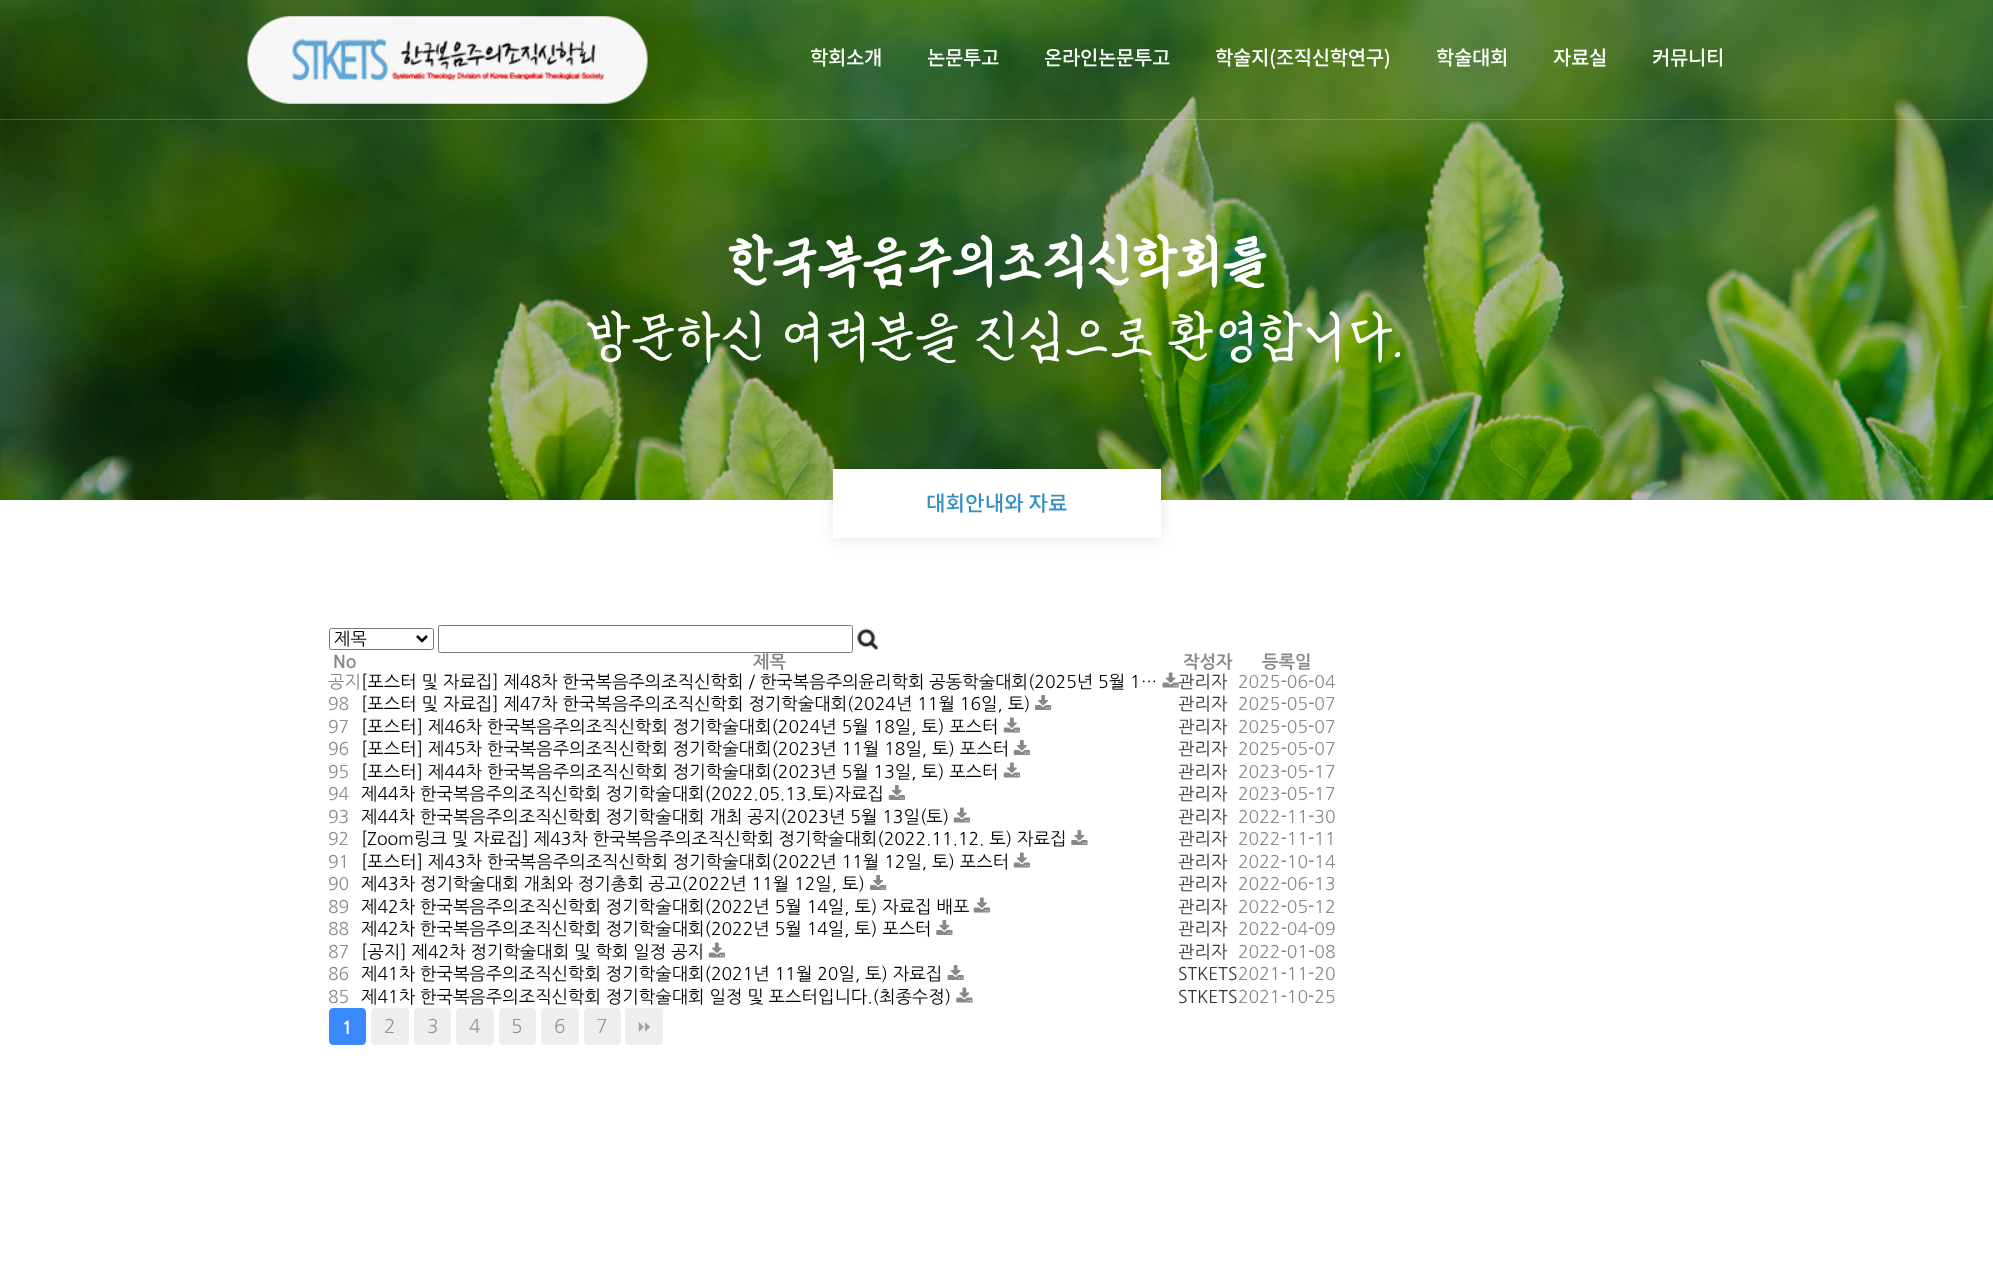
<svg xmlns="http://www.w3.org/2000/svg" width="1993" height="1277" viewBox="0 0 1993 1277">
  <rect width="100%" height="100%" fill="rgb(255,255,255)"/>
  <image x="0" y="0" width="1993" height="500" href="pic2.png"/>
  <rect x="0" y="119" width="1993" height="1" fill="rgba(255,255,255,0.2)"/>
  <image x="247" y="16" width="401" height="88" href="pic1.png"/>
  <g font-family="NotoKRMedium" font-size="20" font-weight="500" letter-spacing="-0.4" fill="rgb(255,255,255)">
    <text x="810" y="65">학회소개</text>
    <text x="927" y="65">논문투고</text>
    <text x="1044" y="65">온라인논문투고</text>
    <text x="1215" y="65">학술지(조직신학연구)</text>
    <text x="1436" y="65">학술대회</text>
    <text x="1553" y="65">자료실</text>
    <text x="1652" y="65">커뮤니티</text>
  </g>
  <text x="727" y="276" font-family="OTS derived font" font-size="56.25" font-weight="bold" fill="rgb(255,255,255)">한국복음주의조직신학회를</text>
  <text x="586" y="351" font-family="OTS derived font" font-size="56.25" fill="rgb(255,255,255)">방문하신 여러분을 진심으로 환영합니다.</text>
  <rect x="833" y="471" width="328" height="69" fill="rgba(0,0,0,0.1)" filter="blur(7.5px)"/>
  <rect x="833" y="469" width="328" height="69" fill="rgb(255,255,255)"/>
  <text x="926" y="511" font-family="NotoKRMedium" font-size="21.25" font-weight="500" fill="rgb(52,144,196)">대회안내와 자료</text>
  <rect x="329.5" y="628.5" width="104" height="21" rx="2" fill="none" stroke="rgb(118,118,118)"/>
  <path d="M417 636L422 641L427 636" fill="none" stroke="rgb(0,0,0)" stroke-width="2.5"/>
  <text x="334" y="645" font-family="NanumGothic" font-size="17.5" fill="rgb(0,0,0)">제목</text>
  <rect x="438.5" y="625.5" width="414" height="27" rx="2" fill="none" stroke="rgb(118,118,118)"/>
  <image x="857" y="628" width="22" height="22" href="pic3.png"/>
  <g font-family="NanumGothic" font-size="17.5" font-weight="bold" fill="rgb(136,136,136)">
    <text x="333" y="668">No</text>
    <text x="753" y="668">제목</text>
    <text x="1183" y="668">작성자</text>
    <text x="1262" y="668">등록일</text>
  </g>
  <text x="328" y="688" font-family="NanumGothic" font-size="17.5" fill="rgb(136,136,136)">공지</text>
  <text x="361" y="688" font-family="NanumGothic" font-size="17.5" fill="rgb(0,0,0)">[포스터 및 자료집] 제48차 한국복음주의조직신학회 / 한국복음주의윤리학회 공동학술대회(2025년 5월 1…</text>
  <image x="1162" y="672" width="17" height="16" href="pic4.png"/>
  <text x="1178" y="688" font-family="NanumGothic" font-size="17.5" fill="rgb(51,51,51)">관리자</text>
  <g font-family="NanumGothic" font-size="17.5" fill="rgb(136,136,136)">
    <text x="1238" y="688">2025-06-04</text>
    <text x="328" y="710">98</text>
  </g>
  <text x="361" y="710" font-family="NanumGothic" font-size="17.5" fill="rgb(0,0,0)">[포스터 및 자료집] 제47차 한국복음주의조직신학회 정기학술대회(2024년 11월 16일, 토)</text>
  <image x="1035" y="695" width="17" height="15" href="pic5.png"/>
  <text x="1178" y="710" font-family="NanumGothic" font-size="17.5" fill="rgb(51,51,51)">관리자</text>
  <g font-family="NanumGothic" font-size="17.5" fill="rgb(136,136,136)">
    <text x="1238" y="710">2025-05-07</text>
    <text x="328" y="733">97</text>
  </g>
  <text x="361" y="733" font-family="NanumGothic" font-size="17.5" fill="rgb(0,0,0)">[포스터] 제46차 한국복음주의조직신학회 정기학술대회(2024년 5월 18일, 토) 포스터</text>
  <image x="1003" y="717" width="17" height="16" href="pic6.png"/>
  <text x="1178" y="733" font-family="NanumGothic" font-size="17.5" fill="rgb(51,51,51)">관리자</text>
  <g font-family="NanumGothic" font-size="17.5" fill="rgb(136,136,136)">
    <text x="1238" y="733">2025-05-07</text>
    <text x="328" y="755">96</text>
  </g>
  <text x="361" y="755" font-family="NanumGothic" font-size="17.5" fill="rgb(0,0,0)">[포스터] 제45차 한국복음주의조직신학회 정기학술대회(2023년 11월 18일, 토) 포스터</text>
  <image x="1013" y="740" width="17" height="15" href="pic7.png"/>
  <text x="1178" y="755" font-family="NanumGothic" font-size="17.5" fill="rgb(51,51,51)">관리자</text>
  <g font-family="NanumGothic" font-size="17.5" fill="rgb(136,136,136)">
    <text x="1238" y="755">2025-05-07</text>
    <text x="328" y="778">95</text>
  </g>
  <text x="361" y="778" font-family="NanumGothic" font-size="17.5" fill="rgb(0,0,0)">[포스터] 제44차 한국복음주의조직신학회 정기학술대회(2023년 5월 13일, 토) 포스터</text>
  <image x="1003" y="762" width="17" height="16" href="pic6.png"/>
  <text x="1178" y="778" font-family="NanumGothic" font-size="17.5" fill="rgb(51,51,51)">관리자</text>
  <g font-family="NanumGothic" font-size="17.5" fill="rgb(136,136,136)">
    <text x="1238" y="778">2023-05-17</text>
    <text x="328" y="800">94</text>
  </g>
  <text x="361" y="800" font-family="NanumGothic" font-size="17.5" fill="rgb(0,0,0)">제44차 한국복음주의조직신학회 정기학술대회(2022.05.13.토)자료집</text>
  <image x="888" y="785" width="17" height="15" href="pic7.png"/>
  <text x="1178" y="800" font-family="NanumGothic" font-size="17.5" fill="rgb(51,51,51)">관리자</text>
  <g font-family="NanumGothic" font-size="17.5" fill="rgb(136,136,136)">
    <text x="1238" y="800">2023-05-17</text>
    <text x="328" y="823">93</text>
  </g>
  <text x="361" y="823" font-family="NanumGothic" font-size="17.5" fill="rgb(0,0,0)">제44차 한국복음주의조직신학회 정기학술대회 개최 공지(2023년 5월 13일(토)</text>
  <image x="953" y="807" width="17" height="16" href="pic6.png"/>
  <text x="1178" y="823" font-family="NanumGothic" font-size="17.5" fill="rgb(51,51,51)">관리자</text>
  <g font-family="NanumGothic" font-size="17.5" fill="rgb(136,136,136)">
    <text x="1238" y="823">2022-11-30</text>
    <text x="328" y="845">92</text>
  </g>
  <text x="361" y="845" font-family="NanumGothic" font-size="17.5" fill="rgb(0,0,0)">[Zoom링크 및 자료집] 제43차 한국복음주의조직신학회 정기학술대회(2022.11.12. 토) 자료집</text>
  <image x="1071" y="830" width="17" height="15" href="pic8.png"/>
  <text x="1178" y="845" font-family="NanumGothic" font-size="17.5" fill="rgb(51,51,51)">관리자</text>
  <g font-family="NanumGothic" font-size="17.5" fill="rgb(136,136,136)">
    <text x="1238" y="845">2022-11-11</text>
    <text x="328" y="868">91</text>
  </g>
  <text x="361" y="868" font-family="NanumGothic" font-size="17.5" fill="rgb(0,0,0)">[포스터] 제43차 한국복음주의조직신학회 정기학술대회(2022년 11월 12일, 토) 포스터</text>
  <image x="1013" y="852" width="17" height="16" href="pic6.png"/>
  <text x="1178" y="868" font-family="NanumGothic" font-size="17.5" fill="rgb(51,51,51)">관리자</text>
  <g font-family="NanumGothic" font-size="17.5" fill="rgb(136,136,136)">
    <text x="1238" y="868">2022-10-14</text>
    <text x="328" y="890">90</text>
  </g>
  <text x="361" y="890" font-family="NanumGothic" font-size="17.5" fill="rgb(0,0,0)">제43차 정기학술대회 개최와 정기총회 공고(2022년 11월 12일, 토)</text>
  <image x="870" y="875" width="17" height="15" href="pic5.png"/>
  <text x="1178" y="890" font-family="NanumGothic" font-size="17.5" fill="rgb(51,51,51)">관리자</text>
  <g font-family="NanumGothic" font-size="17.5" fill="rgb(136,136,136)">
    <text x="1238" y="890">2022-06-13</text>
    <text x="328" y="913">89</text>
  </g>
  <text x="361" y="913" font-family="NanumGothic" font-size="17.5" fill="rgb(0,0,0)">제42차 한국복음주의조직신학회 정기학술대회(2022년 5월 14일, 토) 자료집 배포</text>
  <image x="973" y="897" width="17" height="16" href="pic6.png"/>
  <text x="1178" y="913" font-family="NanumGothic" font-size="17.5" fill="rgb(51,51,51)">관리자</text>
  <g font-family="NanumGothic" font-size="17.5" fill="rgb(136,136,136)">
    <text x="1238" y="913">2022-05-12</text>
    <text x="328" y="935">88</text>
  </g>
  <text x="361" y="935" font-family="NanumGothic" font-size="17.5" fill="rgb(0,0,0)">제42차 한국복음주의조직신학회 정기학술대회(2022년 5월 14일, 토) 포스터</text>
  <image x="936" y="920" width="17" height="15" href="pic8.png"/>
  <text x="1178" y="935" font-family="NanumGothic" font-size="17.5" fill="rgb(51,51,51)">관리자</text>
  <g font-family="NanumGothic" font-size="17.5" fill="rgb(136,136,136)">
    <text x="1238" y="935">2022-04-09</text>
    <text x="328" y="958">87</text>
  </g>
  <text x="361" y="958" font-family="NanumGothic" font-size="17.5" fill="rgb(0,0,0)">[공지] 제42차 정기학술대회 및 학회 일정 공지</text>
  <image x="708" y="942" width="17" height="16" href="pic6.png"/>
  <text x="1178" y="958" font-family="NanumGothic" font-size="17.5" fill="rgb(51,51,51)">관리자</text>
  <g font-family="NanumGothic" font-size="17.5" fill="rgb(136,136,136)">
    <text x="1238" y="958">2022-01-08</text>
    <text x="328" y="980">86</text>
  </g>
  <text x="361" y="980" font-family="NanumGothic" font-size="17.5" fill="rgb(0,0,0)">제41차 한국복음주의조직신학회 정기학술대회(2021년 11월 20일, 토) 자료집</text>
  <image x="947" y="965" width="17" height="15" href="pic9.png"/>
  <text x="1178" y="980" font-family="NanumGothic" font-size="17.5" fill="rgb(51,51,51)">STKETS</text>
  <g font-family="NanumGothic" font-size="17.5" fill="rgb(136,136,136)">
    <text x="1238" y="980">2021-11-20</text>
    <text x="328" y="1003">85</text>
  </g>
  <text x="361" y="1003" font-family="NanumGothic" font-size="17.5" fill="rgb(0,0,0)">제41차 한국복음주의조직신학회 정기학술대회 일정 및 포스터입니다.(최종수정)</text>
  <image x="956" y="987" width="17" height="16" href="pic10.png"/>
  <text x="1178" y="1003" font-family="NanumGothic" font-size="17.5" fill="rgb(51,51,51)">STKETS</text>
  <text x="1238" y="1003" font-family="NanumGothic" font-size="17.5" fill="rgb(136,136,136)">2021-10-25</text>
  <rect x="329.5" y="1008.5" width="36" height="36" rx="3.5" fill="rgb(58,138,253)" stroke="rgb(58,138,253)"/>
  <text x="342" y="1034" font-family="NanumGothic" font-size="17.5" font-weight="bold" fill="rgb(255,255,255)">1</text>
  <rect x="371.5" y="1008.5" width="37" height="36" rx="3.5" fill="rgb(238,238,238)" stroke="rgb(238,238,238)"/>
  <text x="384" y="1033" font-family="NanumGothic" font-size="19" fill="rgb(149,149,149)">2</text>
  <rect x="414.5" y="1008.5" width="36" height="36" rx="3.5" fill="rgb(238,238,238)" stroke="rgb(238,238,238)"/>
  <text x="427" y="1033" font-family="NanumGothic" font-size="19" fill="rgb(149,149,149)">3</text>
  <rect x="456.5" y="1008.5" width="37" height="36" rx="3.5" fill="rgb(238,238,238)" stroke="rgb(238,238,238)"/>
  <text x="469" y="1033" font-family="NanumGothic" font-size="19" fill="rgb(149,149,149)">4</text>
  <rect x="499.5" y="1008.5" width="36" height="36" rx="3.5" fill="rgb(238,238,238)" stroke="rgb(238,238,238)"/>
  <text x="511" y="1033" font-family="NanumGothic" font-size="19" fill="rgb(149,149,149)">5</text>
  <rect x="541.5" y="1008.5" width="37" height="36" rx="3.5" fill="rgb(238,238,238)" stroke="rgb(238,238,238)"/>
  <text x="554" y="1033" font-family="NanumGothic" font-size="19" fill="rgb(149,149,149)">6</text>
  <rect x="584.5" y="1008.5" width="36" height="36" rx="3.5" fill="rgb(238,238,238)" stroke="rgb(238,238,238)"/>
  <text x="596" y="1033" font-family="NanumGothic" font-size="19" fill="rgb(149,149,149)">7</text>
  <rect x="625" y="1008" width="38" height="37" rx="4" fill="rgb(238,238,238)"/>
  <image x="638" y="1022" width="12" height="10" href="pic11.png"/>
  <rect x="625.5" y="1008.5" width="37" height="36" rx="3.5" fill="none" stroke="rgb(238,238,238)"/>
</svg>
